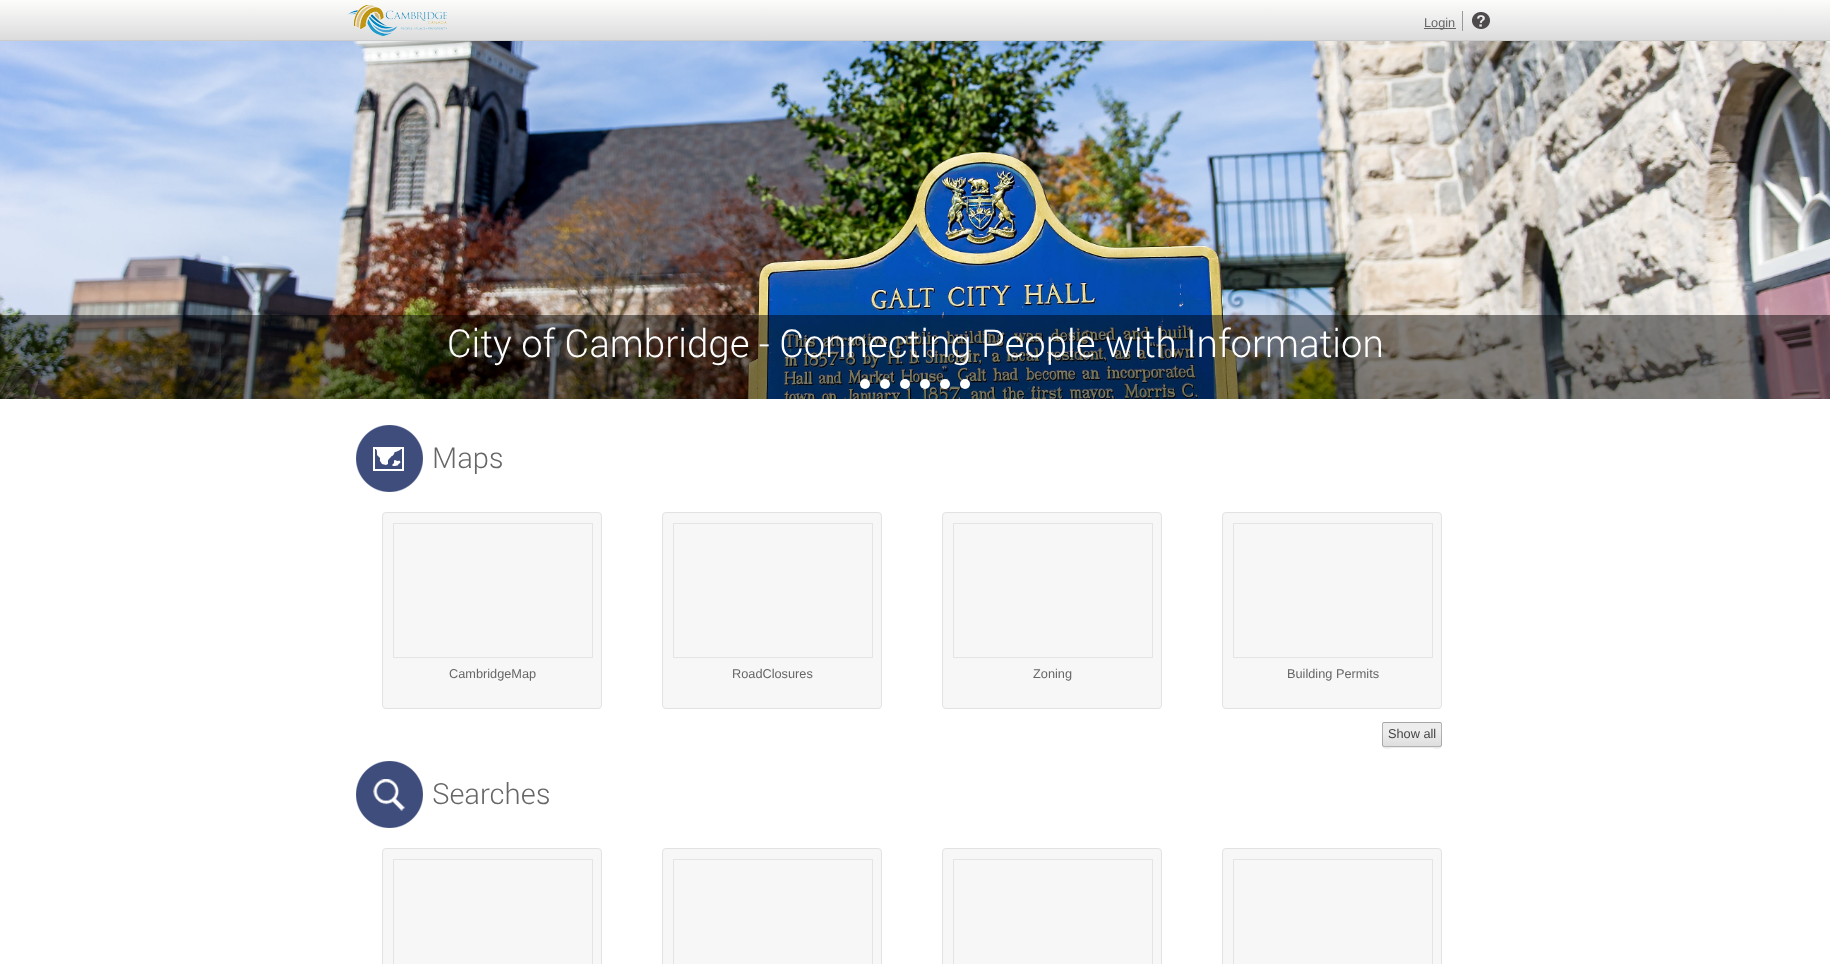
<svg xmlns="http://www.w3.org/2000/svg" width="1830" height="964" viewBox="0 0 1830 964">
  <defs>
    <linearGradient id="g1" gradientUnits="userSpaceOnUse" x1="915" y1="-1" x2="915" y2="40"><stop offset="0" stop-color="rgb(253,253,252)"/><stop offset="1" stop-color="rgb(220,220,220)"/></linearGradient>
    <clipPath id="clip1"><rect x="1382" y="722" width="60" height="25" rx="2"/></clipPath>
    <linearGradient id="g2" gradientUnits="userSpaceOnUse" x1="1412" y1="700" x2="1412" y2="723"><stop offset="0" stop-color="rgb(237,237,237)"/><stop offset="0.38" stop-color="rgb(237,237,237)"/><stop offset="1" stop-color="rgb(222,222,222)"/></linearGradient>
    <linearGradient id="g3" gradientUnits="userSpaceOnUse" x1="1412" y1="723" x2="1412" y2="746"><stop offset="0" stop-color="rgb(237,237,237)"/><stop offset="0.38" stop-color="rgb(237,237,237)"/><stop offset="1" stop-color="rgb(222,222,222)"/></linearGradient>
    <linearGradient id="g4" gradientUnits="userSpaceOnUse" x1="1412" y1="746" x2="1412" y2="769"><stop offset="0" stop-color="rgb(237,237,237)"/><stop offset="0.38" stop-color="rgb(237,237,237)"/><stop offset="1" stop-color="rgb(222,222,222)"/></linearGradient>
  </defs>
  <rect width="100%" height="100%" fill="rgb(255,255,255)"/>
  <rect x="0" y="0" width="1830" height="40" fill="url(#g1)"/>
  <rect x="0" y="40" width="1830" height="1" fill="rgb(204,204,204)"/>
  <image x="347" y="5" width="100" height="31" href="pic1.png"/>
  <rect x="1424" y="28" width="32" height="1" fill="rgb(102,102,102)"/>
  <text x="1424" y="27" font-family="Liberation Sans" font-size="12.75" fill="rgb(102,102,102)">Login</text>
  <rect x="1462" y="11" width="1" height="20" fill="rgb(153,153,153)"/>
  <image x="1472" y="12" width="18" height="17" href="pic2.png"/>
  <image x="0" y="41" width="1830" height="358" href="pic3.png"/>
  <rect x="0" y="315" width="1830" height="54" fill="rgba(0,0,0,0.47)"/>
  <text x="447" y="357" font-family="Roboto" font-size="38.4" font-weight="300" fill="rgb(255,255,255)">City of Cambridge - Connecting People with Information</text>
  <rect x="0" y="369" width="1830" height="30" fill="rgba(0,0,0,0.47)"/>
  <circle cx="865" cy="384" r="5" fill="rgb(255,255,255)"/>
  <circle cx="885" cy="384" r="5" fill="rgb(255,255,255)"/>
  <circle cx="905" cy="384" r="5" fill="rgb(255,255,255)"/>
  <circle cx="925" cy="384" r="5" fill="rgb(255,255,255)"/>
  <circle cx="945" cy="384" r="5" fill="rgb(255,255,255)"/>
  <circle cx="965" cy="384" r="5" fill="rgb(255,255,255)"/>
  <image x="356" y="425" width="67" height="67" href="pic4.png"/>
  <text x="432" y="468" font-family="Roboto" font-size="29" font-weight="300" fill="rgb(102,102,102)">Maps</text>
  <rect x="382.5" y="512.5" width="219" height="196" rx="3.5" fill="rgb(247,247,247)" stroke="rgb(226,226,226)"/>
  <rect x="393.5" y="523.5" width="199" height="134" fill="none" stroke="rgb(230,227,227)"/>
  <text x="449" y="678" font-family="Liberation Sans" font-size="12.75" fill="rgb(102,102,102)">CambridgeMap</text>
  <rect x="662.5" y="512.5" width="219" height="196" rx="3.5" fill="rgb(247,247,247)" stroke="rgb(226,226,226)"/>
  <rect x="673.5" y="523.5" width="199" height="134" fill="none" stroke="rgb(230,227,227)"/>
  <text x="732" y="678" font-family="Liberation Sans" font-size="12.75" fill="rgb(102,102,102)">RoadClosures</text>
  <rect x="942.5" y="512.5" width="219" height="196" rx="3.5" fill="rgb(247,247,247)" stroke="rgb(226,226,226)"/>
  <rect x="953.5" y="523.5" width="199" height="134" fill="none" stroke="rgb(230,227,227)"/>
  <text x="1033" y="678" font-family="Liberation Sans" font-size="12.75" fill="rgb(102,102,102)">Zoning</text>
  <rect x="1222.5" y="512.5" width="219" height="196" rx="3.5" fill="rgb(247,247,247)" stroke="rgb(226,226,226)"/>
  <rect x="1233.5" y="523.5" width="199" height="134" fill="none" stroke="rgb(230,227,227)"/>
  <text x="1287" y="678" font-family="Liberation Sans" font-size="12.75" fill="rgb(102,102,102)">Building Permits</text>
  <path d="M1382 745C1382 751 1390 748 1393 748H1431C1434 748 1442 751 1442 745L1441 747H1383Z" fill="rgb(235,235,235)"/>
  <g clip-path="url(#clip1)">
    <rect x="1382" y="722" width="60" height="1" fill="url(#g2)"/>
    <rect x="1382" y="723" width="60" height="23" fill="url(#g3)"/>
    <rect x="1382" y="746" width="60" height="1" fill="url(#g4)"/>
  </g>
  <rect x="1382.5" y="722.5" width="59" height="24" rx="1.5" fill="none" stroke="rgba(0,0,0,0.25)"/>
  <text x="1388" y="738" font-family="Liberation Sans" font-size="12.75" fill="rgb(68,68,68)">Show all</text>
  <image x="356" y="761" width="67" height="67" href="pic5.png"/>
  <text x="432" y="804" font-family="Roboto" font-size="29" font-weight="300" fill="rgb(102,102,102)">Searches</text>
  <rect x="382.5" y="848.5" width="219" height="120" rx="3.5" fill="rgb(247,247,247)" stroke="rgb(226,226,226)"/>
  <rect x="393.5" y="859.5" width="199" height="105" fill="none" stroke="rgb(230,227,227)"/>
  <rect x="662.5" y="848.5" width="219" height="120" rx="3.5" fill="rgb(247,247,247)" stroke="rgb(226,226,226)"/>
  <rect x="673.5" y="859.5" width="199" height="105" fill="none" stroke="rgb(230,227,227)"/>
  <rect x="942.5" y="848.5" width="219" height="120" rx="3.5" fill="rgb(247,247,247)" stroke="rgb(226,226,226)"/>
  <rect x="953.5" y="859.5" width="199" height="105" fill="none" stroke="rgb(230,227,227)"/>
  <rect x="1222.5" y="848.5" width="219" height="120" rx="3.5" fill="rgb(247,247,247)" stroke="rgb(226,226,226)"/>
  <rect x="1233.5" y="859.5" width="199" height="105" fill="none" stroke="rgb(230,227,227)"/>
</svg>
